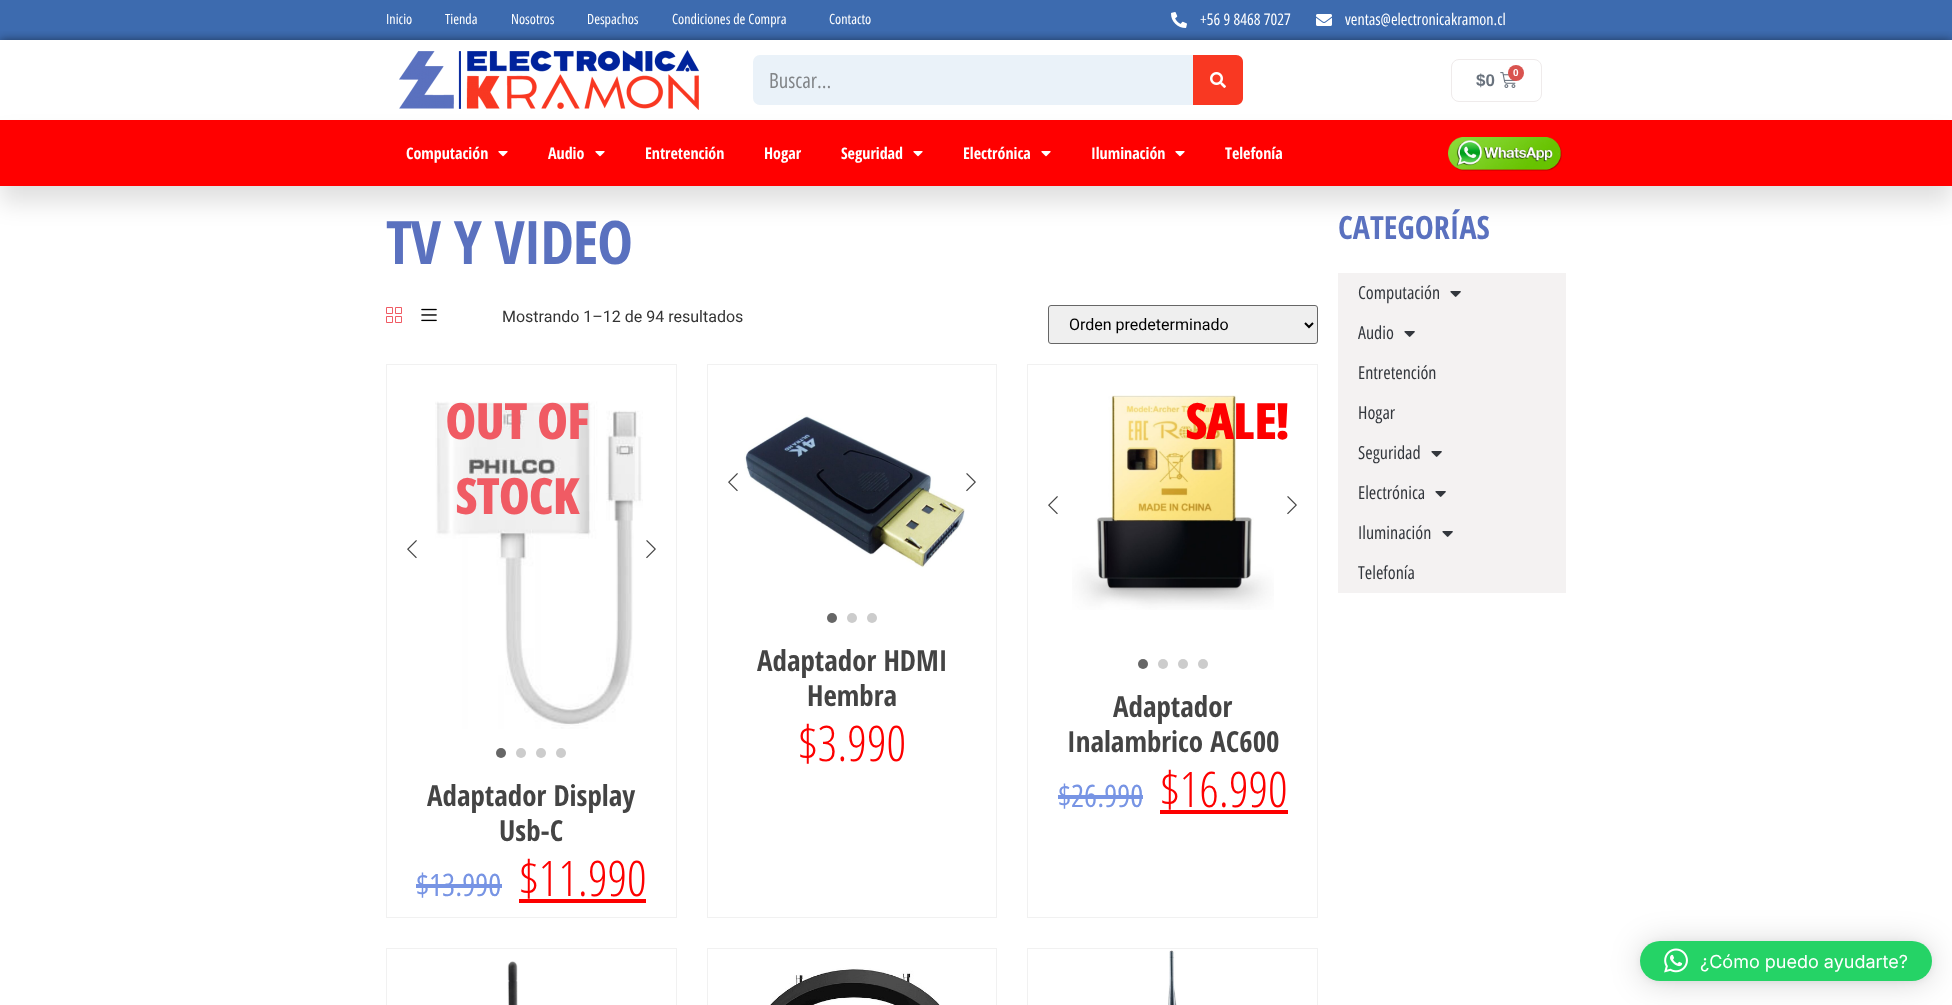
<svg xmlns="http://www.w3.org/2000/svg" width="1952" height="1005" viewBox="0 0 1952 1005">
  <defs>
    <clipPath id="clip1"><rect x="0" y="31" width="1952" height="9"/></clipPath>
  </defs>
  <rect width="100%" height="100%" fill="rgb(255,255,255)"/>
  <rect x="0" y="0" width="1952" height="40" fill="rgb(61,107,175)"/>
  <image x="1171" y="12" width="16" height="16" href="pic1.png"/>
  <image x="1316" y="14" width="16" height="12" href="pic2.png"/>
  <g clip-path="url(#clip1)">
    <rect x="0" y="40" width="1952" height="80" fill="rgba(0,0,0,0.5)" filter="blur(5px)"/>
  </g>
  <g font-family="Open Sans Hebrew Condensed" font-size="14" fill="rgb(255,255,255)">
    <text x="386" y="24">Inicio</text>
    <text x="445" y="24">Tienda</text>
    <text x="511" y="24">Nosotros</text>
    <text x="587" y="24">Despachos</text>
    <text x="672" y="24">Condiciones de Compra</text>
    <text x="829" y="24">Contacto</text>
  </g>
  <g font-family="Open Sans Hebrew Condensed" font-size="16" fill="rgb(255,255,255)">
    <text x="1200" y="25">+56 9 8468 7027</text>
    <text x="1345" y="25">ventas@electronicakramon.cl</text>
  </g>
  <image x="399" y="50" width="300" height="60" href="pic3.png"/>
  <rect x="753" y="55" width="490" height="50" rx="7" fill="rgb(234,242,249)"/>
  <text x="769" y="88" font-family="Open Sans Hebrew Condensed" font-size="21" fill="rgb(130,133,136)">Buscar...</text>
  <path d="M1193 55H1236C1240 55 1243 58 1243 62V98C1243 102 1240 105 1236 105H1193Z" fill="rgb(249,56,34)"/>
  <image x="1210" y="72" width="16" height="16" href="pic4.png"/>
  <rect x="1451.5" y="59.5" width="90" height="42" rx="7.5" fill="none" stroke="rgb(239,235,235)"/>
  <text x="1476" y="86" font-family="Liberation Sans" font-size="17" font-weight="bold" fill="rgb(105,114,125)">$0</text>
  <image x="1500" y="72" width="16" height="16" href="pic5.png"/>
  <circle cx="1516" cy="73" r="8" fill="rgb(217,83,79)"/>
  <text x="1513" y="76" font-family="Liberation Sans" font-size="10" font-weight="bold" fill="rgb(255,255,255)">0</text>
  <rect x="0" y="137" width="1952" height="66" fill="rgba(0,0,0,0.12)" filter="blur(11.5px)"/>
  <rect x="0" y="120" width="1952" height="66" fill="rgb(255,0,0)"/>
  <text x="406" y="159" font-family="Open Sans Hebrew Condensed" font-size="16" font-weight="bold" fill="rgb(255,255,255)">Computación</text>
  <image x="498" y="151" width="10" height="6" href="pic6.png"/>
  <text x="548" y="159" font-family="Open Sans Hebrew Condensed" font-size="16" font-weight="bold" fill="rgb(255,255,255)">Audio</text>
  <image x="595" y="151" width="10" height="6" href="pic6.png"/>
  <g font-family="Open Sans Hebrew Condensed" font-size="16" font-weight="bold" fill="rgb(255,255,255)">
    <text x="645" y="159">Entretención</text>
    <text x="764" y="159">Hogar</text>
    <text x="841" y="159">Seguridad</text>
  </g>
  <image x="913" y="151" width="10" height="6" href="pic6.png"/>
  <text x="963" y="159" font-family="Open Sans Hebrew Condensed" font-size="16" font-weight="bold" fill="rgb(255,255,255)">Electrónica</text>
  <image x="1041" y="151" width="10" height="6" href="pic6.png"/>
  <text x="1091" y="159" font-family="Open Sans Hebrew Condensed" font-size="16" font-weight="bold" fill="rgb(255,255,255)">Iluminación</text>
  <image x="1175" y="151" width="10" height="6" href="pic6.png"/>
  <text x="1225" y="159" font-family="Open Sans Hebrew Condensed" font-size="16" font-weight="bold" fill="rgb(255,255,255)">Telefonía</text>
  <image x="1448" y="137" width="114" height="34" href="pic7.png"/>
  <text x="386" y="264" font-family="Open Sans Hebrew Condensed" font-size="60" font-weight="bold" letter-spacing="-1.1" fill="rgb(90,113,191)">TV Y VIDEO</text>
  <image x="386" y="307" width="16" height="16" href="pic8.png"/>
  <image x="421" y="308" width="16" height="14" href="pic9.png"/>
  <text x="502" y="322" font-family="Roboto" font-size="16" fill="rgb(51,51,51)">Mostrando 1–12 de 94 resultados</text>
  <rect x="1048.5" y="305.5" width="269" height="38" rx="2.5" fill="rgb(239,239,239)" stroke="rgb(102,102,102)"/>
  <path d="M1305 323L1309 327L1313 323" fill="none" stroke="rgb(0,0,0)" stroke-width="2"/>
  <text x="1069" y="330" font-family="Roboto" font-size="16" fill="rgb(0,0,0)">Orden predeterminado</text>
  <rect x="386.5" y="364.5" width="290" height="553" fill="none" stroke="rgb(241,241,241)"/>
  <image x="407" y="540" width="10" height="19" href="pic10.png"/>
  <image x="435" y="401" width="208" height="328" href="pic11.png"/>
  <image x="646" y="540" width="10" height="19" href="pic12.png"/>
  <circle cx="501" cy="753" r="5" fill="rgb(102,102,102)"/>
  <circle cx="521" cy="753" r="5" fill="rgb(204,204,204)"/>
  <circle cx="541" cy="753" r="5" fill="rgb(204,204,204)"/>
  <circle cx="561" cy="753" r="5" fill="rgb(204,204,204)"/>
  <g font-family="Open Sans Hebrew Condensed" font-size="50" font-weight="800" letter-spacing="-1.5" fill="rgb(240,91,100)">
    <text x="445" y="439">OUT OF</text>
    <text x="455" y="514">STOCK</text>
  </g>
  <g font-family="Open Sans Hebrew Condensed" font-size="29" font-weight="bold" fill="rgb(68,68,68)">
    <text x="427" y="806">Adaptador Display</text>
    <text x="499" y="841">Usb-C</text>
  </g>
  <text x="416" y="896" font-family="Open Sans Hebrew Condensed" font-size="31" fill="rgb(119,148,228)">$13.990</text>
  <rect x="416" y="884" width="86" height="4" fill="rgb(119,148,228)"/>
  <text x="519" y="896" font-family="Open Sans Hebrew Condensed" font-size="49" font-weight="300" fill="rgb(253,0,0)">$11.990</text>
  <rect x="519" y="899" width="127" height="4" fill="rgb(253,0,0)"/>
  <rect x="707.5" y="364.5" width="289" height="553" fill="none" stroke="rgb(241,241,241)"/>
  <image x="728" y="473" width="10" height="19" href="pic10.png"/>
  <image x="744" y="415" width="221" height="153" href="pic13.png"/>
  <image x="966" y="473" width="10" height="19" href="pic12.png"/>
  <circle cx="832" cy="618" r="5" fill="rgb(102,102,102)"/>
  <circle cx="852" cy="618" r="5" fill="rgb(204,204,204)"/>
  <circle cx="872" cy="618" r="5" fill="rgb(204,204,204)"/>
  <g font-family="Open Sans Hebrew Condensed" font-size="29" font-weight="bold" fill="rgb(68,68,68)">
    <text x="757" y="671">Adaptador HDMI</text>
    <text x="807" y="706">Hembra</text>
  </g>
  <text x="798" y="761" font-family="Open Sans Hebrew Condensed" font-size="49" font-weight="300" fill="rgb(253,0,0)">$3.990</text>
  <rect x="1027.5" y="364.5" width="290" height="553" fill="none" stroke="rgb(241,241,241)"/>
  <image x="1048" y="496" width="10" height="19" href="pic10.png"/>
  <image x="1072" y="395" width="202" height="215" href="pic14.png"/>
  <image x="1287" y="496" width="10" height="19" href="pic12.png"/>
  <circle cx="1143" cy="664" r="5" fill="rgb(102,102,102)"/>
  <circle cx="1163" cy="664" r="5" fill="rgb(204,204,204)"/>
  <circle cx="1183" cy="664" r="5" fill="rgb(204,204,204)"/>
  <circle cx="1203" cy="664" r="5" fill="rgb(204,204,204)"/>
  <text x="1185" y="439" font-family="Open Sans Hebrew Condensed" font-size="50" font-weight="800" letter-spacing="-1.5" fill="rgb(253,0,0)">SALE!</text>
  <g font-family="Open Sans Hebrew Condensed" font-size="29" font-weight="bold" fill="rgb(68,68,68)">
    <text x="1113" y="717">Adaptador</text>
    <text x="1067" y="752">Inalambrico AC600</text>
  </g>
  <text x="1058" y="807" font-family="Open Sans Hebrew Condensed" font-size="31" fill="rgb(119,148,228)">$26.990</text>
  <rect x="1058" y="795" width="85" height="4" fill="rgb(119,148,228)"/>
  <text x="1160" y="807" font-family="Open Sans Hebrew Condensed" font-size="49" font-weight="300" fill="rgb(253,0,0)">$16.990</text>
  <rect x="1160" y="810" width="128" height="4" fill="rgb(253,0,0)"/>
  <rect x="386.5" y="948.5" width="290" height="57" fill="none" stroke="rgb(241,241,241)"/>
  <image x="507" y="961" width="11" height="44" href="pic15.png"/>
  <rect x="707.5" y="948.5" width="289" height="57" fill="none" stroke="rgb(241,241,241)"/>
  <image x="770" y="968" width="170" height="37" href="pic16.png"/>
  <rect x="1027.5" y="948.5" width="290" height="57" fill="none" stroke="rgb(241,241,241)"/>
  <image x="1168" y="950" width="9" height="55" href="pic17.png"/>
  <text x="1338" y="239" font-family="Open Sans Hebrew Condensed" font-size="32" font-weight="bold" fill="rgb(90,113,191)">CATEGORÍAS</text>
  <rect x="1338" y="273" width="228" height="320" fill="rgb(244,242,242)"/>
  <text x="1358" y="299" font-family="Open Sans Hebrew Condensed" font-size="18" fill="rgb(51,55,61)">Computación</text>
  <image x="1450" y="291" width="11" height="6" href="pic18.png"/>
  <text x="1358" y="339" font-family="Open Sans Hebrew Condensed" font-size="18" fill="rgb(51,55,61)">Audio</text>
  <image x="1404" y="331" width="11" height="6" href="pic18.png"/>
  <g font-family="Open Sans Hebrew Condensed" font-size="18" fill="rgb(51,55,61)">
    <text x="1358" y="379">Entretención</text>
    <text x="1358" y="419">Hogar</text>
    <text x="1358" y="459">Seguridad</text>
  </g>
  <image x="1431" y="451" width="11" height="6" href="pic18.png"/>
  <text x="1358" y="499" font-family="Open Sans Hebrew Condensed" font-size="18" fill="rgb(51,55,61)">Electrónica</text>
  <image x="1435" y="491" width="11" height="6" href="pic18.png"/>
  <text x="1358" y="539" font-family="Open Sans Hebrew Condensed" font-size="18" fill="rgb(51,55,61)">Iluminación</text>
  <image x="1442" y="531" width="11" height="6" href="pic18.png"/>
  <text x="1358" y="579" font-family="Open Sans Hebrew Condensed" font-size="18" fill="rgb(51,55,61)">Telefonía</text>
  <rect x="1640" y="943" width="292" height="40" rx="20" fill="rgba(0,0,0,0.16)" filter="blur(16px)"/>
  <rect x="1640" y="942" width="292" height="40" rx="20" fill="rgba(0,0,0,0.06)" filter="blur(3px)"/>
  <rect x="1640" y="941" width="292" height="40" rx="20" fill="rgb(37,211,102)"/>
  <image x="1664" y="948" width="24" height="25" href="pic19.png"/>
  <text x="1700" y="968" font-family="Inter" font-size="18" fill="rgb(255,255,255)">¿Cómo puedo ayudarte?</text>
</svg>
